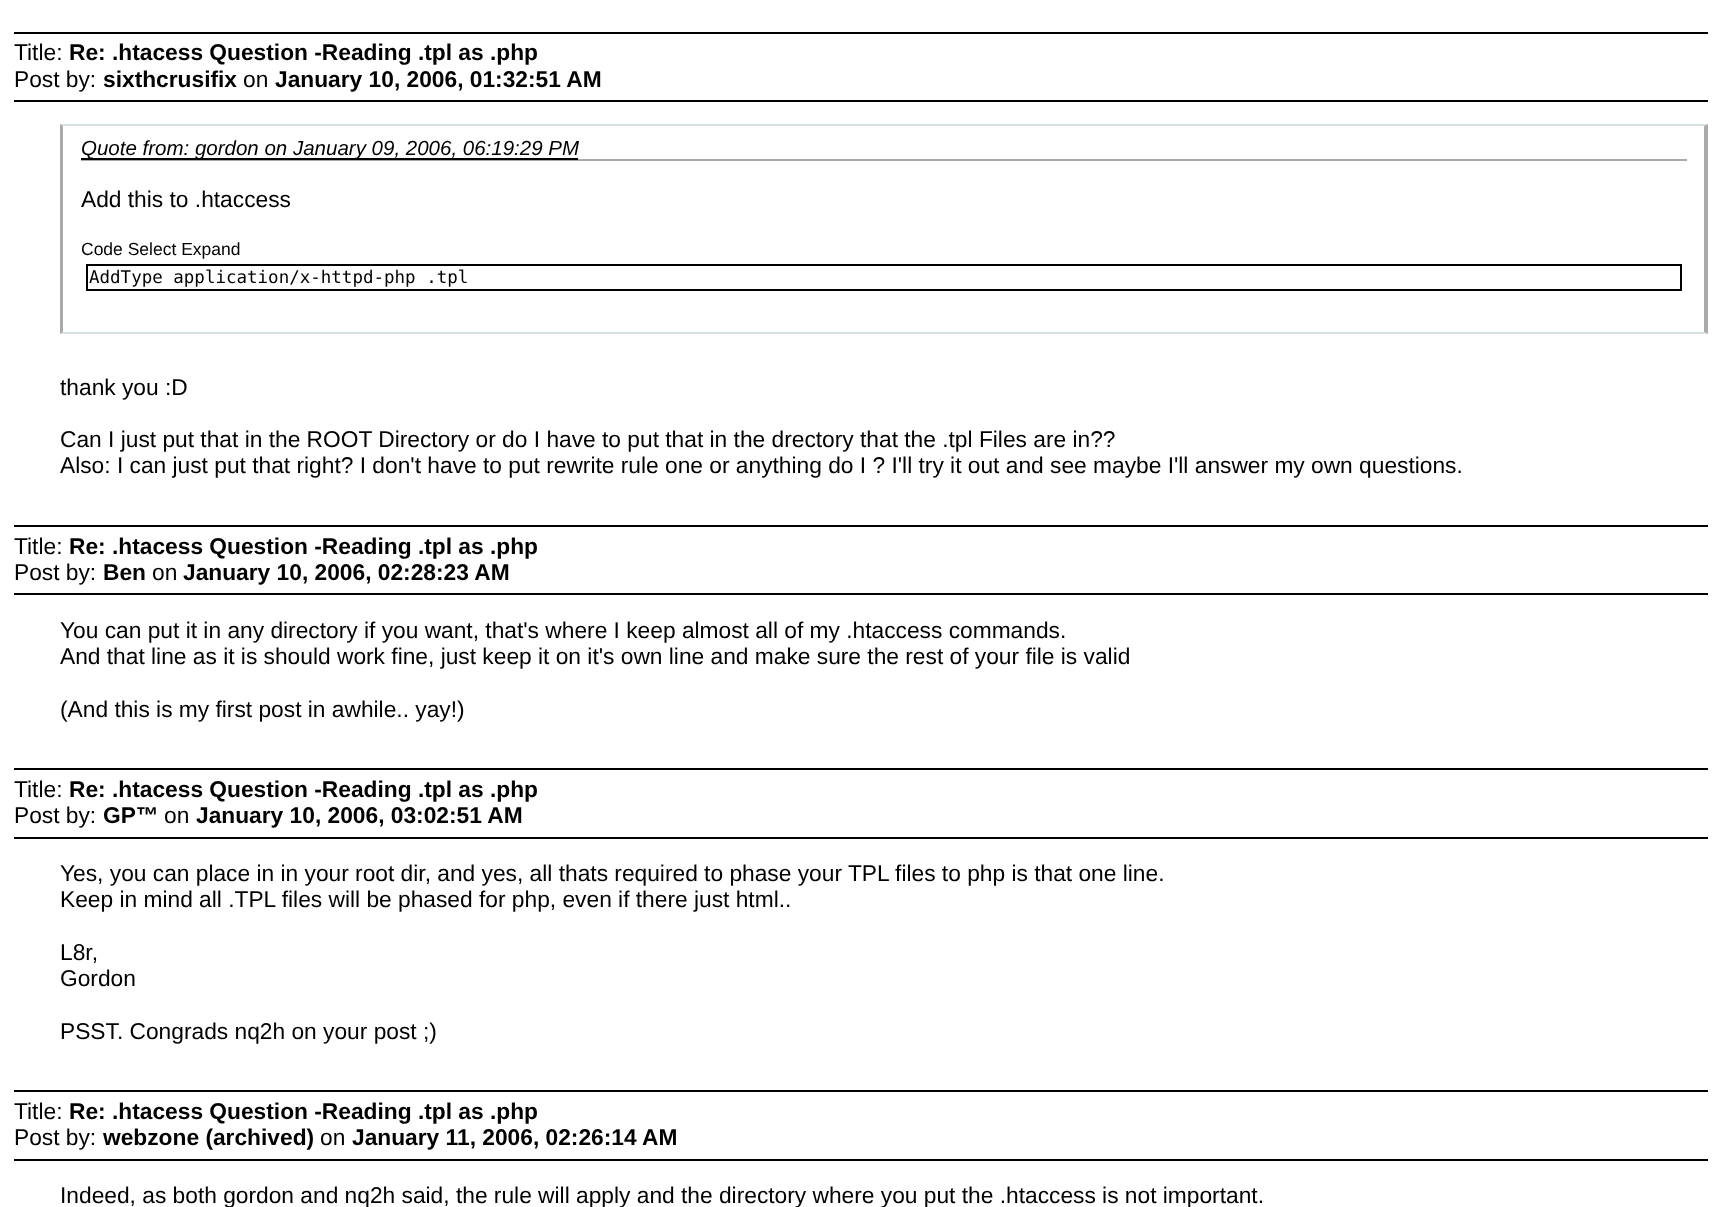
<svg xmlns="http://www.w3.org/2000/svg" width="1722" height="1207" viewBox="0 0 1722 1207">
  <rect width="100%" height="100%" fill="rgb(255,255,255)"/>
  <rect x="14" y="32" width="1694" height="2" fill="rgb(0,0,0)"/>
  <rect x="14" y="100" width="1694" height="2" fill="rgb(0,0,0)"/>
  <text x="14" y="60" font-family="Liberation Sans" font-size="22.75" fill="rgb(0,0,0)">Title:</text>
  <text x="69" y="60" font-family="Liberation Sans" font-size="22.75" font-weight="bold" fill="rgb(0,0,0)">Re: .htacess Question -Reading .tpl as .php</text>
  <text x="14" y="87" font-family="Liberation Sans" font-size="22.75" fill="rgb(0,0,0)">Post by:</text>
  <text x="103" y="87" font-family="Liberation Sans" font-size="22.75" font-weight="bold" fill="rgb(0,0,0)">sixthcrusifix</text>
  <text x="243" y="87" font-family="Liberation Sans" font-size="22.75" fill="rgb(0,0,0)">on</text>
  <text x="275" y="87" font-family="Liberation Sans" font-size="22.75" font-weight="bold" fill="rgb(0,0,0)">January 10, 2006, 01:32:51 AM</text>
  <path d="M60 124H1708L1704 126H63Z" fill="rgb(214,223,226)"/>
  <path d="M1708 124V334L1704 332V126Z" fill="rgb(170,170,170)"/>
  <path d="M1708 334H60L63 332H1704Z" fill="rgb(214,223,226)"/>
  <path d="M60 334V124L63 126V332Z" fill="rgb(170,170,170)"/>
  <rect x="81" y="159" width="1606" height="2" fill="rgb(170,170,170)"/>
  <rect x="81" y="158" width="497" height="2" fill="rgb(0,0,0)"/>
  <text x="81" y="155" font-family="Liberation Sans" font-size="20.5" font-style="italic" fill="rgb(0,0,0)">Quote from: gordon on January 09, 2006, 06:19:29 PM</text>
  <text x="81" y="207" font-family="Liberation Sans" font-size="22.75" fill="rgb(0,0,0)">Add this to .htaccess</text>
  <text x="81" y="255" font-family="Liberation Sans" font-size="17.5" fill="rgb(0,0,0)">Code Select Expand</text>
  <rect x="87" y="265" width="1594" height="25" fill="none" stroke="rgb(0,0,0)" stroke-width="2"/>
  <text x="89" y="283" font-family="DejaVu Sans Mono" font-size="17.5" fill="rgb(0,0,0)">AddType application/x-httpd-php .tpl</text>
  <g font-family="Liberation Sans" font-size="22.75" fill="rgb(0,0,0)">
    <text x="60" y="395">thank you :D</text>
    <text>
      <tspan x="60" y="447">Can I just put that in the ROOT Directory or do I have to put that in the drectory that the .tpl Files are in??</tspan>
      <tspan x="60" y="473">Also: I can just put that right? I don't have to put rewrite rule one or anything do I ? I'll try it out and see maybe I'll answer my own questions.</tspan>
    </text>
  </g>
  <rect x="14" y="525" width="1694" height="2" fill="rgb(0,0,0)"/>
  <rect x="14" y="593" width="1694" height="2" fill="rgb(0,0,0)"/>
  <text x="14" y="554" font-family="Liberation Sans" font-size="22.75" fill="rgb(0,0,0)">Title:</text>
  <text x="69" y="554" font-family="Liberation Sans" font-size="22.75" font-weight="bold" fill="rgb(0,0,0)">Re: .htacess Question -Reading .tpl as .php</text>
  <text x="14" y="580" font-family="Liberation Sans" font-size="22.75" fill="rgb(0,0,0)">Post by:</text>
  <text x="103" y="580" font-family="Liberation Sans" font-size="22.75" font-weight="bold" fill="rgb(0,0,0)">Ben</text>
  <text x="152" y="580" font-family="Liberation Sans" font-size="22.75" fill="rgb(0,0,0)">on</text>
  <text x="183" y="580" font-family="Liberation Sans" font-size="22.75" font-weight="bold" fill="rgb(0,0,0)">January 10, 2006, 02:28:23 AM</text>
  <g font-family="Liberation Sans" font-size="22.75" fill="rgb(0,0,0)">
    <text>
      <tspan x="60" y="638">You can put it in any directory if you want, that's where I keep almost all of my .htaccess commands.</tspan>
      <tspan x="60" y="664">And that line as it is should work fine, just keep it on it's own line and make sure the rest of your file is valid</tspan>
    </text>
    <text x="60" y="717">(And this is my first post in awhile.. yay!)</text>
  </g>
  <rect x="14" y="768" width="1694" height="2" fill="rgb(0,0,0)"/>
  <rect x="14" y="837" width="1694" height="2" fill="rgb(0,0,0)"/>
  <text x="14" y="797" font-family="Liberation Sans" font-size="22.75" fill="rgb(0,0,0)">Title:</text>
  <text x="69" y="797" font-family="Liberation Sans" font-size="22.75" font-weight="bold" fill="rgb(0,0,0)">Re: .htacess Question -Reading .tpl as .php</text>
  <text x="14" y="823" font-family="Liberation Sans" font-size="22.75" fill="rgb(0,0,0)">Post by:</text>
  <text x="103" y="823" font-family="Liberation Sans" font-size="22.75" font-weight="bold" fill="rgb(0,0,0)">GP™</text>
  <text x="164" y="823" font-family="Liberation Sans" font-size="22.75" fill="rgb(0,0,0)">on</text>
  <text x="196" y="823" font-family="Liberation Sans" font-size="22.75" font-weight="bold" fill="rgb(0,0,0)">January 10, 2006, 03:02:51 AM</text>
  <g font-family="Liberation Sans" font-size="22.75" fill="rgb(0,0,0)">
    <text>
      <tspan x="60" y="881">Yes, you can place in in your root dir, and yes, all thats required to phase your TPL files to php is that one line.</tspan>
      <tspan x="60" y="907">Keep in mind all .TPL files will be phased for php, even if there just html..</tspan>
    </text>
    <text>
      <tspan x="60" y="960">L8r,</tspan>
      <tspan x="60" y="986">Gordon</tspan>
    </text>
    <text x="60" y="1039">PSST. Congrads nq2h on your post ;)</text>
  </g>
  <rect x="14" y="1090" width="1694" height="2" fill="rgb(0,0,0)"/>
  <rect x="14" y="1159" width="1694" height="2" fill="rgb(0,0,0)"/>
  <text x="14" y="1119" font-family="Liberation Sans" font-size="22.75" fill="rgb(0,0,0)">Title:</text>
  <text x="69" y="1119" font-family="Liberation Sans" font-size="22.75" font-weight="bold" fill="rgb(0,0,0)">Re: .htacess Question -Reading .tpl as .php</text>
  <text x="14" y="1145" font-family="Liberation Sans" font-size="22.75" fill="rgb(0,0,0)">Post by:</text>
  <text x="103" y="1145" font-family="Liberation Sans" font-size="22.75" font-weight="bold" fill="rgb(0,0,0)">webzone (archived)</text>
  <text x="320" y="1145" font-family="Liberation Sans" font-size="22.75" fill="rgb(0,0,0)">on</text>
  <text x="352" y="1145" font-family="Liberation Sans" font-size="22.75" font-weight="bold" fill="rgb(0,0,0)">January 11, 2006, 02:26:14 AM</text>
  <text x="60" y="1203" font-family="Liberation Sans" font-size="22.75" fill="rgb(0,0,0)">Indeed, as both gordon and nq2h said, the rule will apply and the directory where you put the .htaccess is not important.</text>
</svg>
